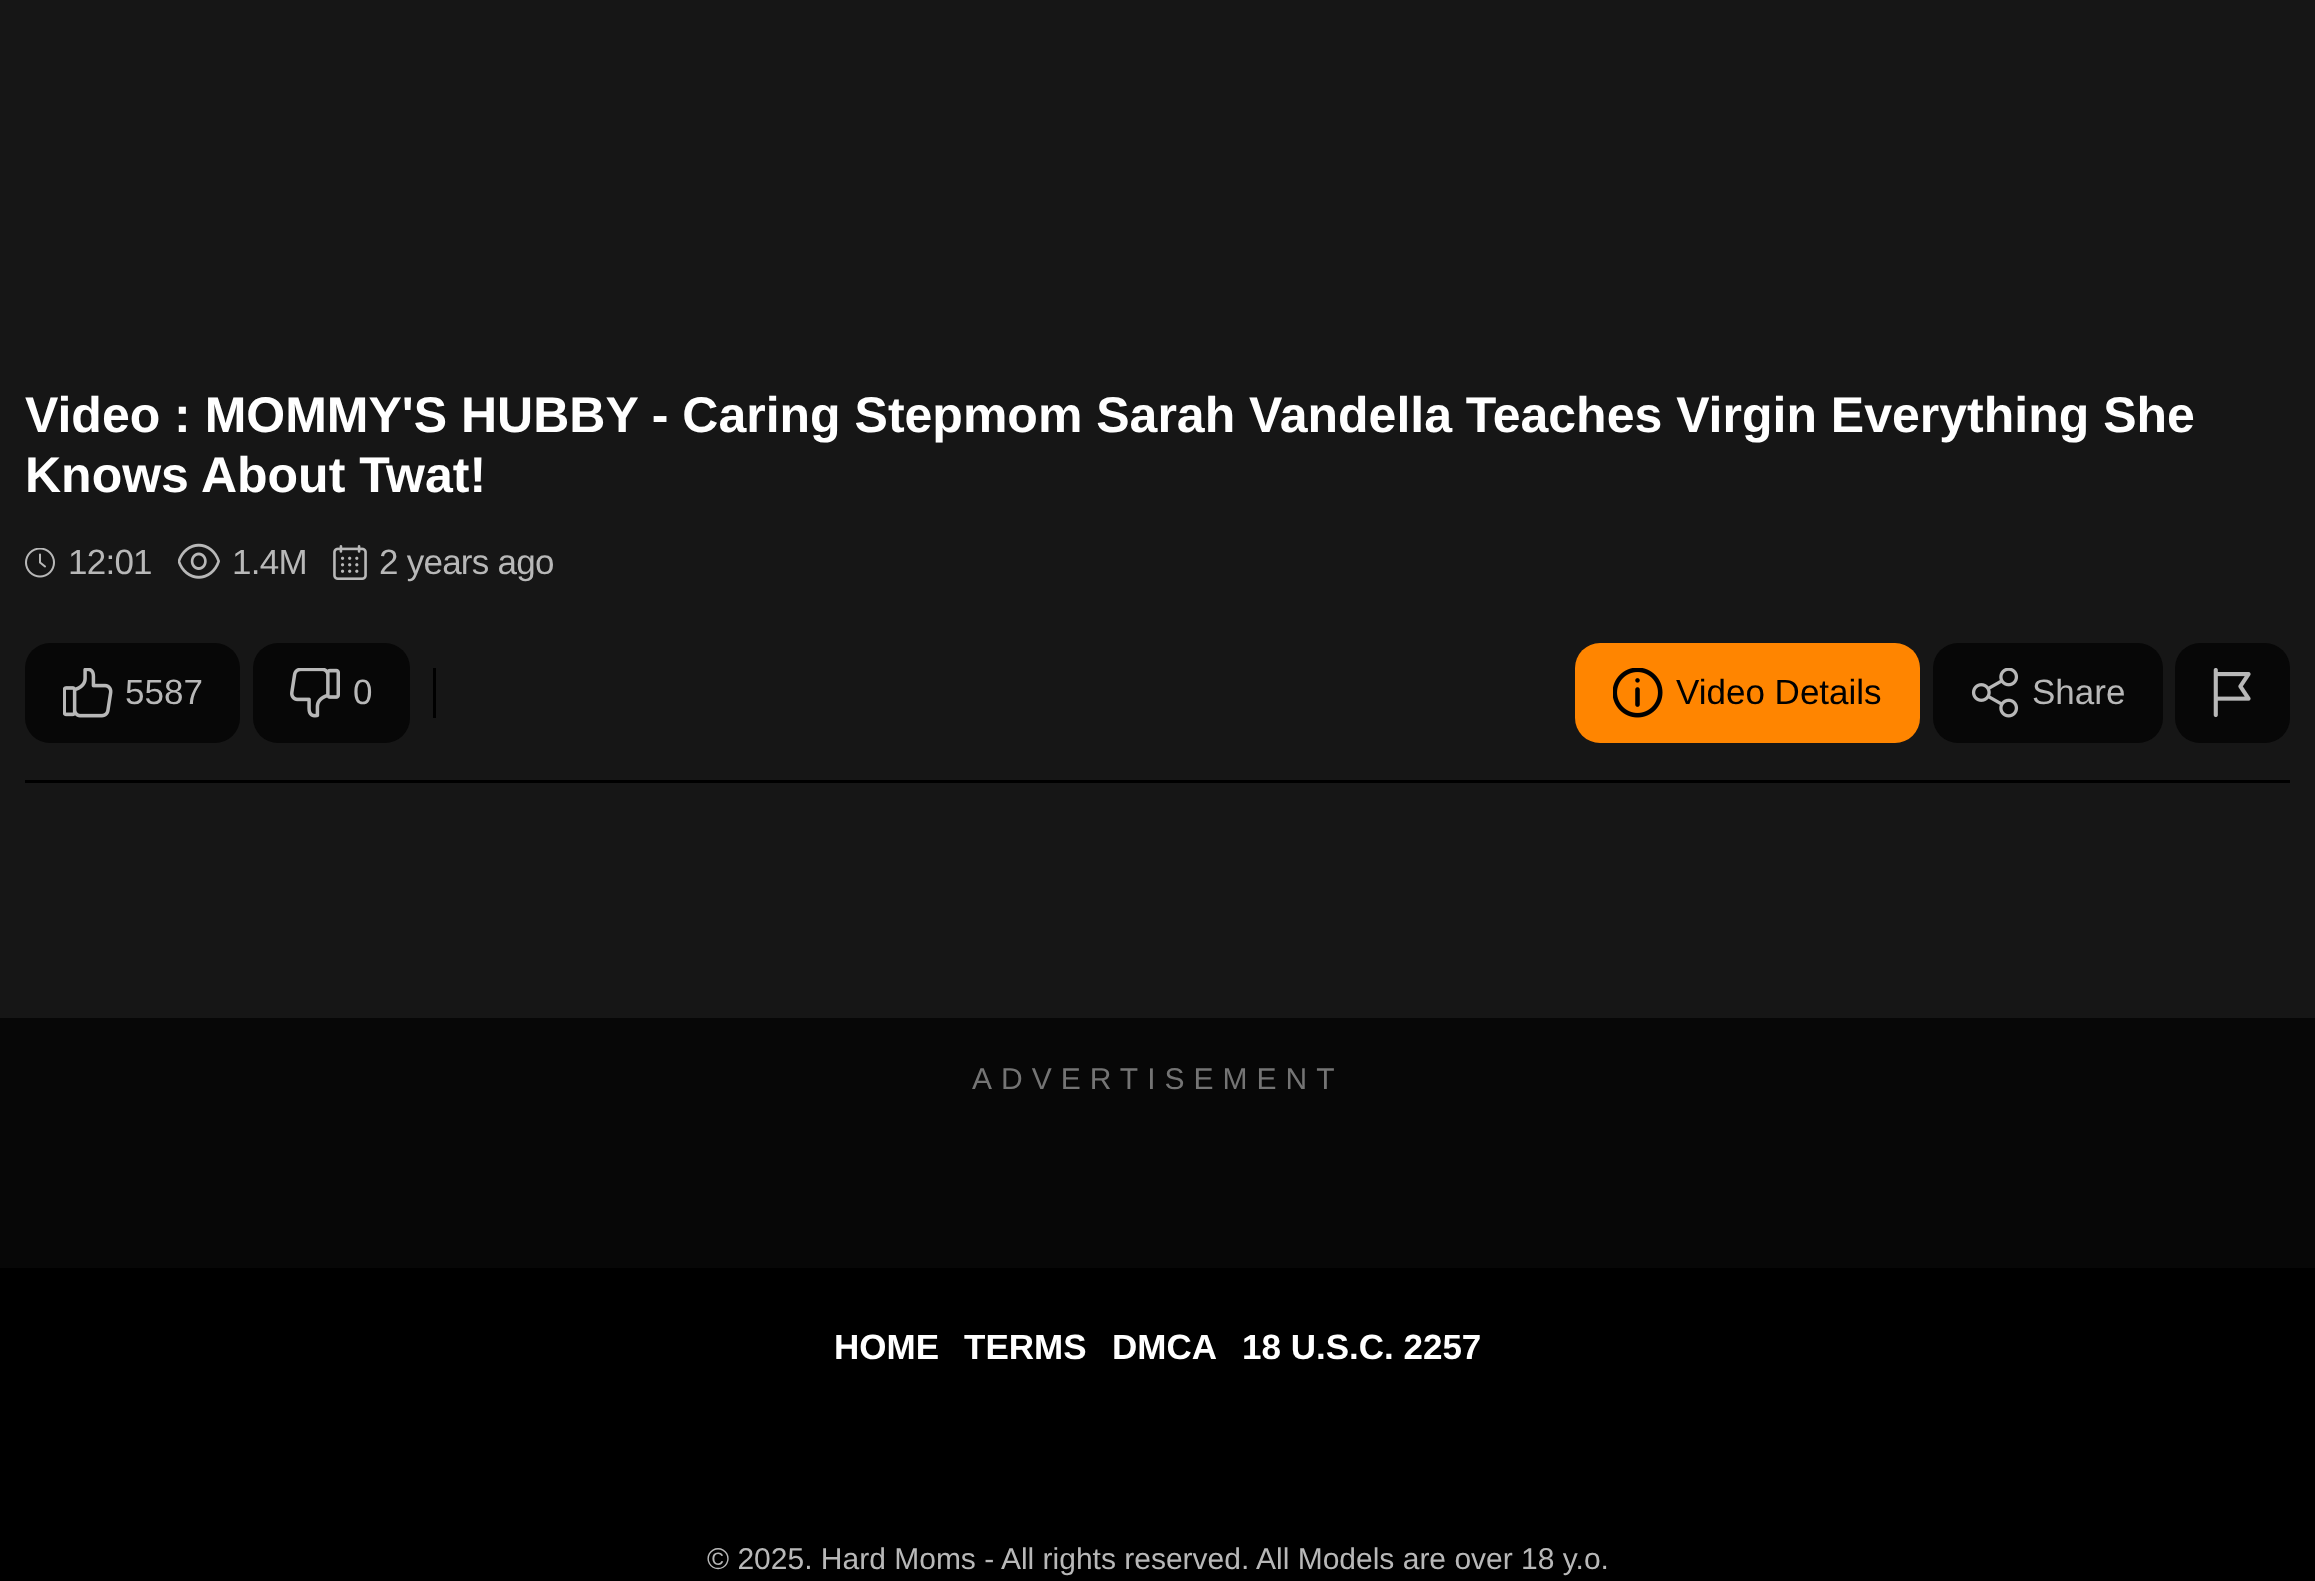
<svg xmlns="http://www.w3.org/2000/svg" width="2315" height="1581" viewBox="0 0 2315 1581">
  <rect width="100%" height="100%" fill="rgb(22,22,22)"/>
  <g font-family="Liberation Sans" font-size="50" font-weight="bold" fill="rgb(255,255,255)">
    <text>
      <tspan x="25" y="432">Video : MOMMY'S HUBBY - Caring Stepmom Sarah Vandella Teaches Virgin Everything She</tspan>
      <tspan x="25" y="492">Knows About Twat!</tspan>
    </text>
  </g>
  <image x="25" y="548" width="30" height="30" href="pic1.png"/>
  <text x="68" y="574" font-family="Liberation Sans" font-size="35" letter-spacing="-0.75" fill="rgb(184,184,184)">12:01</text>
  <image x="178" y="543" width="42" height="36" href="pic2.png"/>
  <text x="232" y="574" font-family="Liberation Sans" font-size="35" letter-spacing="-0.75" fill="rgb(184,184,184)">1.4M</text>
  <image x="333" y="545" width="34" height="35" href="pic3.png"/>
  <text x="379" y="574" font-family="Liberation Sans" font-size="35" letter-spacing="-0.75" fill="rgb(184,184,184)">2 years ago</text>
  <rect x="25" y="780" width="2265" height="3" fill="rgb(0,0,0)"/>
  <rect x="25" y="643" width="215" height="100" rx="25" fill="rgb(7,7,7)"/>
  <image x="63" y="668" width="50" height="50" href="pic4.png"/>
  <text x="125" y="704" font-family="Liberation Sans" font-size="35" fill="rgb(184,184,184)">5587</text>
  <rect x="253" y="643" width="157" height="100" rx="25" fill="rgb(7,7,7)"/>
  <image x="290" y="668" width="50" height="50" href="pic5.png"/>
  <text x="353" y="704" font-family="Liberation Sans" font-size="35" fill="rgb(184,184,184)">0</text>
  <rect x="433" y="668" width="3" height="50" fill="rgb(0,0,0)"/>
  <rect x="1575" y="643" width="345" height="100" rx="25" fill="rgb(255,133,0)"/>
  <image x="1613" y="668" width="50" height="50" href="pic6.png"/>
  <text x="1676" y="704" font-family="Liberation Sans" font-size="35" fill="rgb(0,0,0)">Video Details</text>
  <rect x="1933" y="643" width="230" height="100" rx="25" fill="rgb(7,7,7)"/>
  <image x="1971" y="668" width="48" height="50" href="pic7.png"/>
  <text x="2032" y="704" font-family="Liberation Sans" font-size="35" fill="rgb(184,184,184)">Share</text>
  <rect x="2175" y="643" width="115" height="100" rx="25" fill="rgb(7,7,7)"/>
  <image x="2213" y="668" width="38" height="50" href="pic8.png"/>
  <rect x="0" y="1268" width="2315" height="313" fill="rgb(0,0,0)"/>
  <rect x="0" y="1018" width="2315" height="250" fill="rgb(7,7,7)"/>
  <text x="972" y="1089" font-family="Liberation Sans" font-size="30" letter-spacing="9" fill="rgb(116,116,116)">ADVERTISEMENT</text>
  <g font-family="Liberation Sans" font-size="35" font-weight="bold" fill="rgb(255,255,255)">
    <text x="834" y="1359">HOME</text>
    <text x="964" y="1359">TERMS</text>
    <text x="1112" y="1359">DMCA</text>
    <text x="1242" y="1359">18 U.S.C. 2257</text>
  </g>
  <text x="707" y="1569" font-family="Liberation Sans" font-size="30" fill="rgb(184,184,184)">© 2025. Hard Moms - All rights reserved. All Models are over 18 y.o.</text>
</svg>
